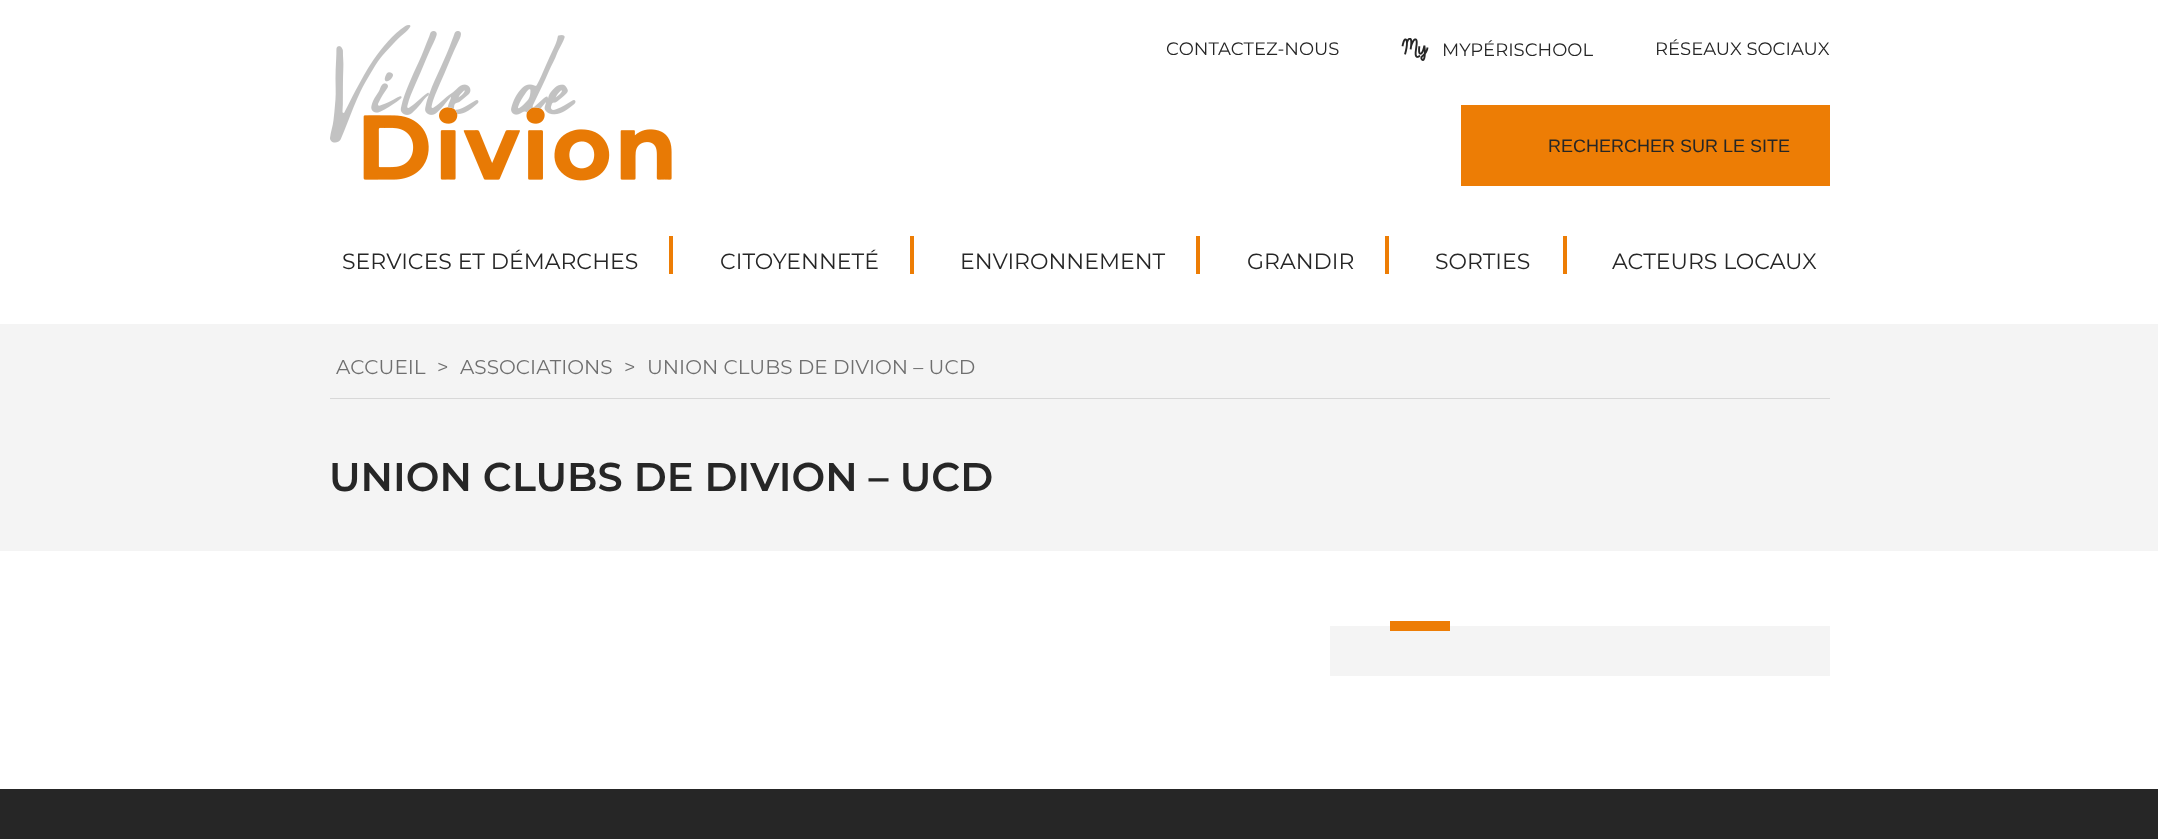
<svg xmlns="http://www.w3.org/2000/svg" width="2158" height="839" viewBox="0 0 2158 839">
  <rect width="100%" height="100%" fill="rgb(255,255,255)"/>
  <image x="330" y="25" width="342" height="156" href="pic1.png"/>
  <text x="1166" y="55" font-family="Montserrat" font-size="18" fill="rgb(38,38,38)">CONTACTEZ-NOUS</text>
  <image x="1401" y="38" width="28" height="23" href="pic2.png"/>
  <g font-family="Montserrat" font-size="18" fill="rgb(38,38,38)">
    <text x="1442" y="56">MYPÉRISCHOOL</text>
    <text x="1655" y="55">RÉSEAUX SOCIAUX</text>
  </g>
  <rect x="1461" y="105" width="369" height="81" fill="rgb(237,125,5)"/>
  <text x="1548" y="152" font-family="Liberation Sans" font-size="18" fill="rgb(38,38,38)">RECHERCHER SUR LE SITE</text>
  <rect x="669" y="236" width="4" height="38" fill="rgb(237,125,5)"/>
  <text x="342" y="269" font-family="Montserrat" font-size="22" fill="rgb(38,38,38)">SERVICES ET DÉMARCHES</text>
  <rect x="910" y="236" width="4" height="38" fill="rgb(237,125,5)"/>
  <text x="720" y="269" font-family="Montserrat" font-size="22" fill="rgb(38,38,38)">CITOYENNETÉ</text>
  <rect x="1196" y="236" width="4" height="38" fill="rgb(237,125,5)"/>
  <text x="960" y="269" font-family="Montserrat" font-size="22" fill="rgb(38,38,38)">ENVIRONNEMENT</text>
  <rect x="1385" y="236" width="4" height="38" fill="rgb(237,125,5)"/>
  <text x="1247" y="269" font-family="Montserrat" font-size="22" fill="rgb(38,38,38)">GRANDIR</text>
  <rect x="1563" y="236" width="4" height="38" fill="rgb(237,125,5)"/>
  <g font-family="Montserrat" font-size="22" fill="rgb(38,38,38)">
    <text x="1435" y="269">SORTIES</text>
    <text x="1612" y="269">ACTEURS LOCAUX</text>
  </g>
  <rect x="0" y="324" width="2158" height="227" fill="rgb(244,244,244)"/>
  <rect x="330" y="398" width="1500" height="1" fill="rgb(216,216,216)"/>
  <g font-family="Montserrat" font-size="20" fill="rgb(111,111,111)">
    <text x="336" y="374">ACCUEIL</text>
    <text x="437" y="374">&gt;</text>
    <text x="460" y="374">ASSOCIATIONS</text>
    <text x="624" y="374">&gt;</text>
    <text x="647" y="374">UNION CLUBS DE DIVION – UCD</text>
  </g>
  <text x="329" y="491" font-family="Montserrat" font-size="40" font-weight="600" fill="rgb(38,38,38)">UNION CLUBS DE DIVION – UCD</text>
  <rect x="1330" y="626" width="500" height="50" fill="rgb(244,244,244)"/>
  <rect x="1390" y="621" width="60" height="10" fill="rgb(237,125,5)"/>
  <rect x="0" y="789" width="2158" height="50" fill="rgb(38,38,38)"/>
</svg>
